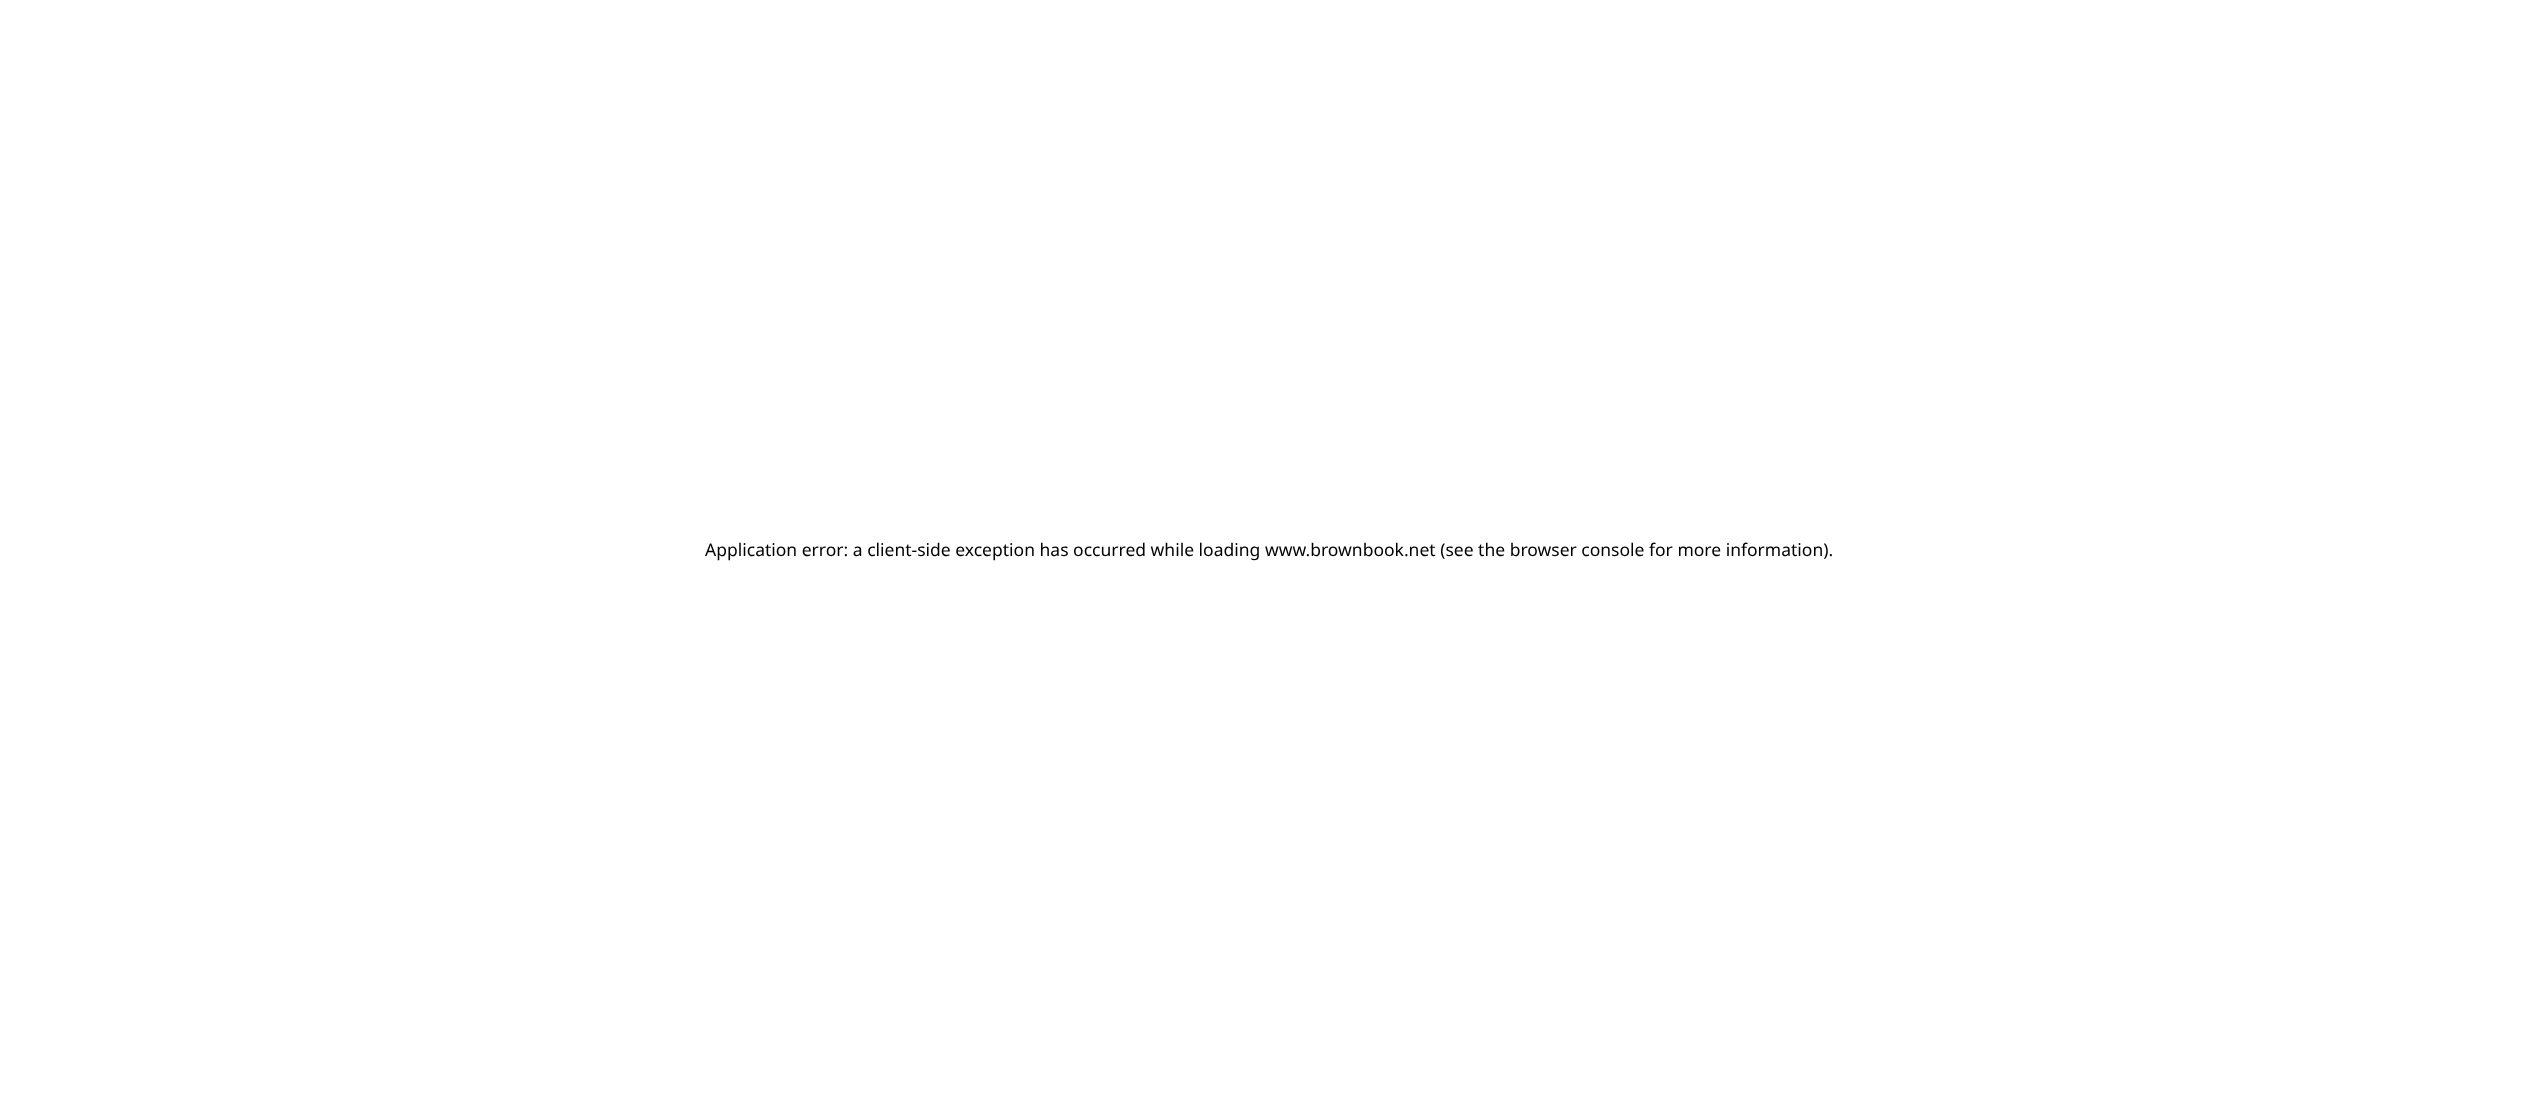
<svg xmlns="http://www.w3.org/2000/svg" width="2537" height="1098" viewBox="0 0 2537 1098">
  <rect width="100%" height="100%" fill="rgb(255,255,255)"/>
  <text x="705" y="556" font-family="Noto Sans" font-size="17.5" fill="rgb(0,0,0)">Application error: a client-side exception has occurred while loading www.brownbook.net (see the browser console for more information).</text>
</svg>
